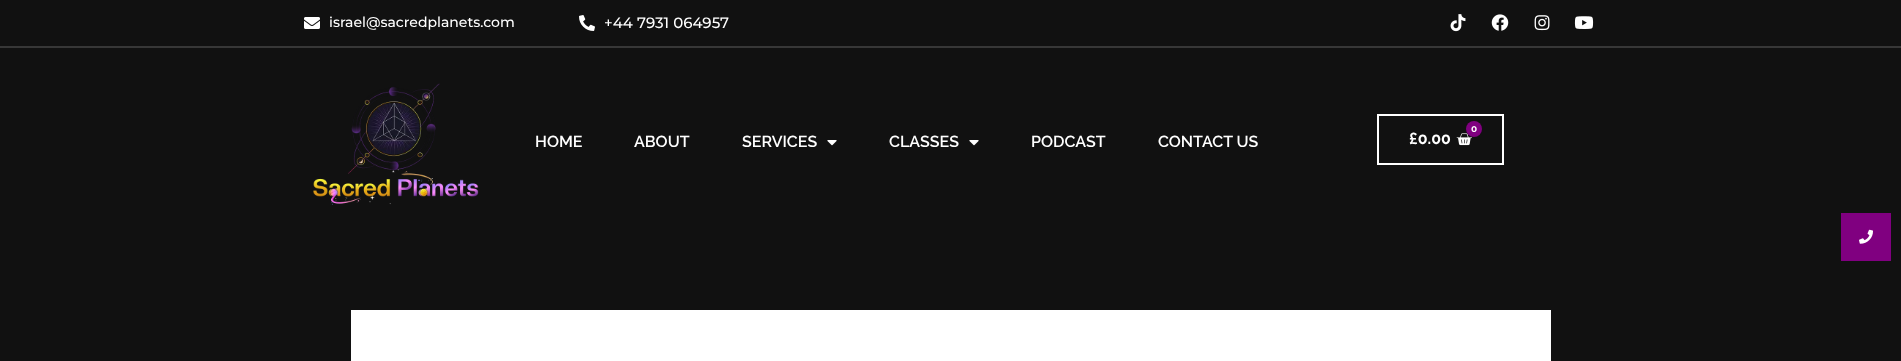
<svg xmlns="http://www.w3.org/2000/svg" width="1901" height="361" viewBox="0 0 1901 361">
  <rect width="100%" height="100%" fill="rgb(17,17,17)"/>
  <rect x="0" y="46" width="1901" height="2" fill="rgb(55,55,55)"/>
  <image x="304" y="17" width="16" height="12" href="pic1.png"/>
  <text x="329" y="27" font-family="Montserrat" font-size="14" font-weight="500" fill="rgb(255,255,255)">israel@sacredplanets.com</text>
  <image x="579" y="15" width="16" height="16" href="pic2.png"/>
  <text x="604" y="28" font-family="Montserrat" font-size="15" font-weight="500" fill="rgb(255,255,255)">+44 7931 064957</text>
  <image x="1450" y="14" width="16" height="18" href="pic3.png"/>
  <image x="1491" y="14" width="18" height="17" href="pic4.png"/>
  <image x="1534" y="15" width="16" height="16" href="pic5.png"/>
  <image x="1574" y="16" width="20" height="13" href="pic6.png"/>
  <image x="313" y="83" width="166" height="122" href="pic7.png"/>
  <g font-family="Raleway" font-size="16" font-weight="600" fill="rgb(255,255,255)">
    <text x="535" y="147">HOME</text>
    <text x="634" y="147">ABOUT</text>
    <text x="742" y="147">SERVICES</text>
  </g>
  <image x="827" y="140" width="10" height="6" href="pic8.png"/>
  <text x="889" y="147" font-family="Raleway" font-size="16" font-weight="600" fill="rgb(255,255,255)">CLASSES</text>
  <image x="969" y="140" width="10" height="6" href="pic8.png"/>
  <g font-family="Raleway" font-size="16" font-weight="600" fill="rgb(255,255,255)">
    <text x="1031" y="147">PODCAST</text>
    <text x="1158" y="147">CONTACT US</text>
  </g>
  <rect x="1378" y="115" width="125" height="49" fill="none" stroke="rgb(255,255,255)" stroke-width="2"/>
  <image x="1456" y="133" width="16" height="13" href="pic9.png"/>
  <circle cx="1474" cy="129" r="8" fill="rgb(128,0,128)"/>
  <text x="1471" y="132" font-family="Raleway" font-size="10" font-weight="bold" fill="rgb(255,255,255)">0</text>
  <text x="1409" y="144" font-family="Raleway" font-size="16" font-weight="bold" fill="rgb(255,255,255)">£0.00</text>
  <rect x="1841" y="213" width="50" height="48" fill="rgb(128,0,128)"/>
  <image x="1859" y="229" width="14" height="15" href="pic10.png"/>
  <rect x="351" y="310" width="1200" height="51" fill="rgb(255,255,255)"/>
</svg>
